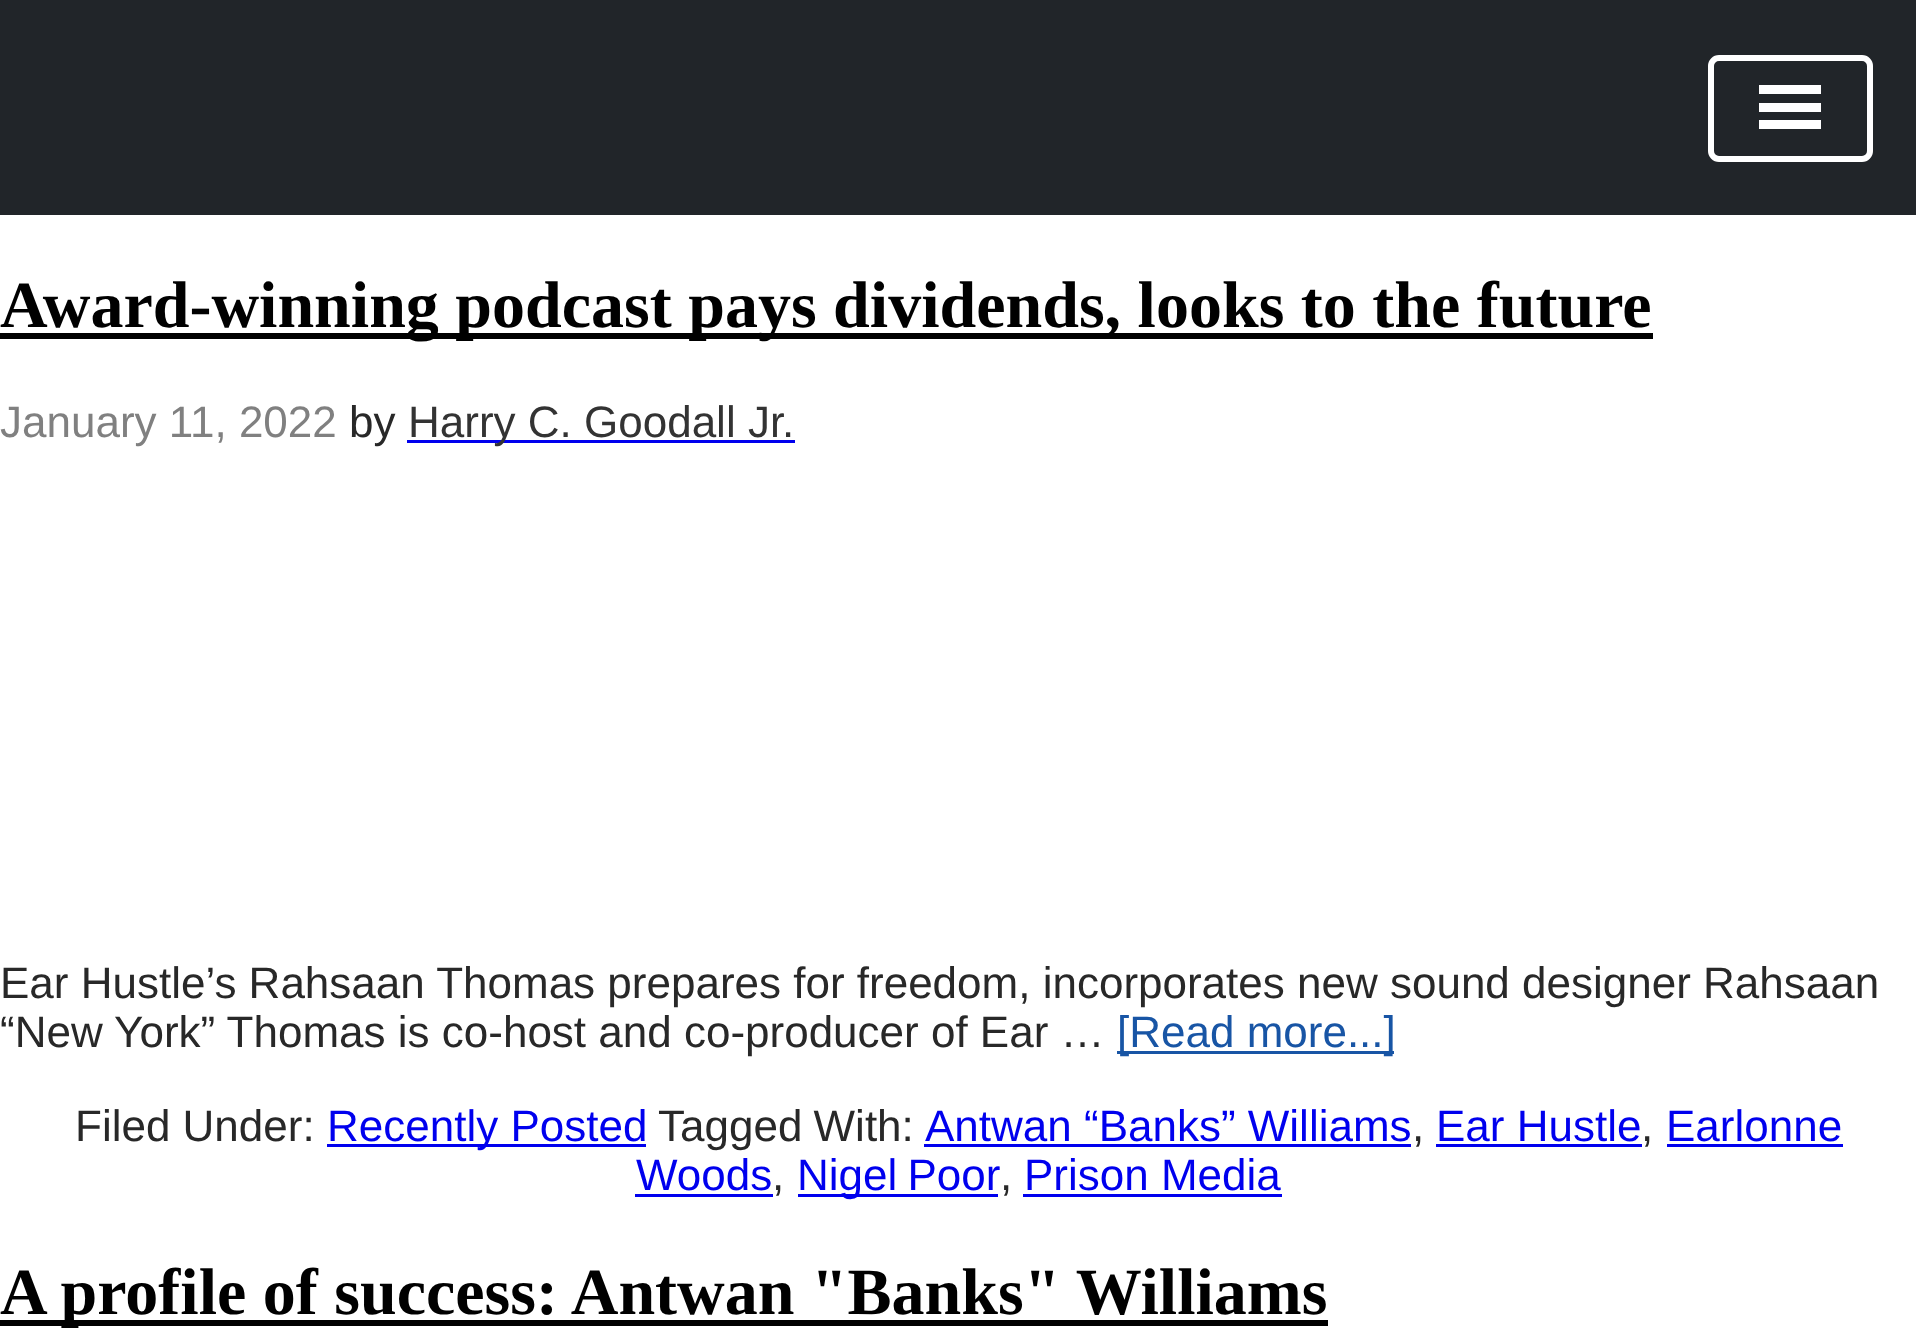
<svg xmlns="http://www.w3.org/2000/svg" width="1916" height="1343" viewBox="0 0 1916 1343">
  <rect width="100%" height="100%" fill="rgb(255,255,255)"/>
  <rect x="0" y="0" width="1916" height="215" fill="rgb(33,37,41)"/>
  <rect x="1711" y="58" width="159" height="101" rx="8" fill="none" stroke="rgb(255,255,255)" stroke-width="6"/>
  <path d="M1759 129H1821V120H1759ZM1759 85V94H1821V85ZM1759 112H1821V103H1759Z" fill="rgb(255,255,255)"/>
  <rect x="0" y="333" width="1653" height="6" fill="rgb(0,0,0)"/>
  <text x="0" y="327" font-family="Liberation Serif" font-size="66" font-weight="bold" fill="rgb(0,0,0)">Award-winning podcast pays dividends, looks to the future</text>
  <text x="0" y="437" font-family="Liberation Sans" font-size="44" fill="rgb(128,128,128)">January 11, 2022</text>
  <text x="349" y="437" font-family="Liberation Sans" font-size="44" fill="rgb(40,40,40)">by</text>
  <rect x="407" y="440" width="388" height="3" fill="rgb(0,0,238)"/>
  <text x="408" y="437" font-family="Liberation Sans" font-size="44" fill="rgb(51,51,51)">Harry C. Goodall Jr.</text>
  <g font-family="Liberation Sans" font-size="44" fill="rgb(40,40,40)">
    <text>
      <tspan x="0" y="998">Ear Hustle’s Rahsaan Thomas prepares for freedom, incorporates new sound designer Rahsaan</tspan>
      <tspan x="0" y="1047">“New York” Thomas is co-host and co-producer of Ear …</tspan>
    </text>
  </g>
  <rect x="1117" y="1051" width="277" height="3" fill="rgb(24,85,165)"/>
  <text x="1117" y="1047" font-family="Liberation Sans" font-size="44" fill="rgb(24,85,165)">[Read more...]</text>
  <text x="75" y="1141" font-family="Liberation Sans" font-size="44" fill="rgb(40,40,40)">Filed Under:</text>
  <rect x="327" y="1144" width="319" height="3" fill="rgb(0,0,238)"/>
  <text x="327" y="1141" font-family="Liberation Sans" font-size="44" fill="rgb(0,0,238)">Recently Posted</text>
  <text x="658" y="1141" word-spacing="-1" font-family="Liberation Sans" font-size="44" fill="rgb(40,40,40)">Tagged With:</text>
  <text x="925" y="1141" font-family="Liberation Sans" font-size="44" fill="rgb(0,0,238)">Antwan “Banks” Williams</text>
  <text x="1412" y="1141" font-family="Liberation Sans" font-size="44" fill="rgb(40,40,40)">,</text>
  <rect x="924" y="1144" width="487" height="3" fill="rgb(0,0,238)"/>
  <text x="1436" y="1141" font-family="Liberation Sans" font-size="44" fill="rgb(0,0,238)">Ear Hustle</text>
  <text x="1641" y="1141" font-family="Liberation Sans" font-size="44" fill="rgb(40,40,40)">,</text>
  <rect x="1436" y="1144" width="206" height="3" fill="rgb(0,0,238)"/>
  <rect x="1667" y="1144" width="176" height="3" fill="rgb(0,0,238)"/>
  <g font-family="Liberation Sans" font-size="44" fill="rgb(0,0,238)">
    <text x="1666" y="1141">Earlonne</text>
    <text x="636" y="1190">Woods</text>
  </g>
  <text x="772" y="1190" font-family="Liberation Sans" font-size="44" fill="rgb(40,40,40)">,</text>
  <rect x="635" y="1194" width="138" height="3" fill="rgb(0,0,238)"/>
  <rect x="798" y="1194" width="200" height="3" fill="rgb(0,0,238)"/>
  <text x="797" y="1190" word-spacing="-2" font-family="Liberation Sans" font-size="44" fill="rgb(0,0,238)">Nigel Poor</text>
  <text x="1000" y="1190" font-family="Liberation Sans" font-size="44" fill="rgb(40,40,40)">,</text>
  <rect x="1023" y="1194" width="259" height="3" fill="rgb(0,0,238)"/>
  <text x="1024" y="1190" font-family="Liberation Sans" font-size="44" fill="rgb(0,0,238)">Prison Media</text>
  <rect x="0" y="1320" width="1328" height="6" fill="rgb(0,0,0)"/>
  <text x="0" y="1314" font-family="Liberation Serif" font-size="66" font-weight="bold" fill="rgb(0,0,0)">A profile of success: Antwan "Banks" Williams</text>
</svg>
